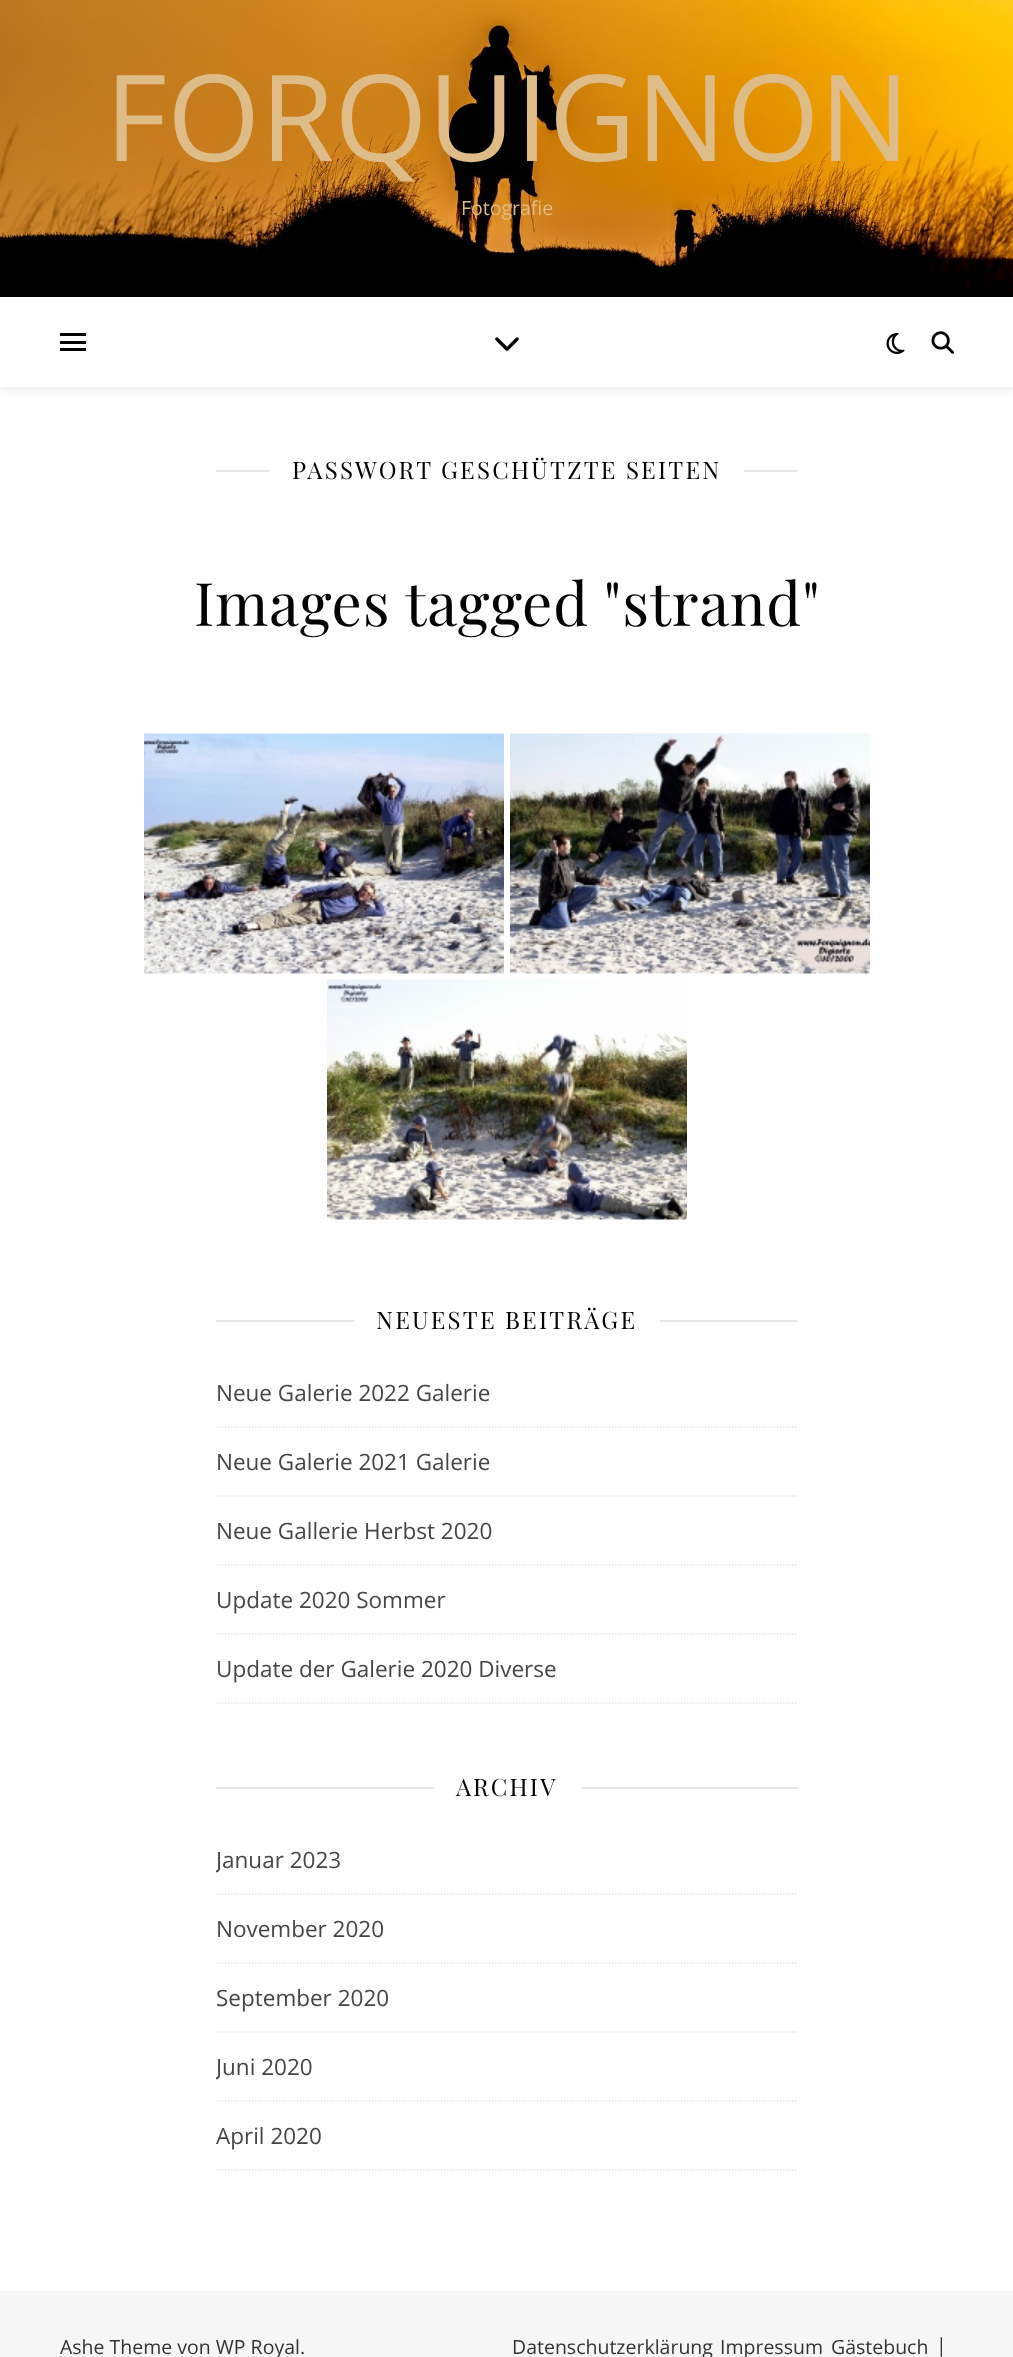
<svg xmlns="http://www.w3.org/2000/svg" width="1013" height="2357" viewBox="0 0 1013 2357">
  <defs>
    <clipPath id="clip1"><path d="M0 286H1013V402H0ZM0 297H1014V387H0Z" clip-rule="evenodd"/></clipPath>
    <clipPath id="clip2"><rect x="216" y="1826" width="126" height="67"/></clipPath>
    <clipPath id="clip3"><rect x="216" y="2033" width="98" height="67"/></clipPath>
  </defs>
  <rect width="100%" height="100%" fill="rgb(255,255,255)"/>
  <image x="0" y="0" width="1013" height="297" href="pic1.png"/>
  <text x="105" y="161" font-family="Open Sans" font-size="120" fill="rgb(221,188,135)">FORQUIGNON</text>
  <text x="461" y="215" font-family="Open Sans" font-size="19.5" fill="rgb(221,188,135)">Fotografie</text>
  <g clip-path="url(#clip1)">
    <rect x="0" y="299" width="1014" height="90" fill="rgba(0,0,0,0.1)" filter="blur(4px)"/>
  </g>
  <rect x="60" y="333" width="26" height="3" fill="rgb(0,0,0)"/>
  <rect x="60" y="341" width="26" height="3" fill="rgb(0,0,0)"/>
  <rect x="60" y="348" width="26" height="3" fill="rgb(0,0,0)"/>
  <image x="495" y="337" width="24" height="14" href="pic2.png"/>
  <image x="886" y="333" width="19" height="21" href="pic3.png"/>
  <image x="931" y="331" width="23" height="23" href="pic4.png"/>
  <rect x="216" y="470" width="54" height="2" fill="rgb(232,232,232)"/>
  <text x="292" y="479" font-family="Playfair Display" font-size="24" letter-spacing="2.25" fill="rgb(3,3,3)">PASSWORT GESCHÜTZTE SEITEN</text>
  <rect x="744" y="470" width="54" height="2" fill="rgb(232,232,232)"/>
  <text x="194" y="626" font-family="Playfair Display" font-size="60" letter-spacing="0.75" fill="rgb(3,3,3)">Images tagged "strand"</text>
  <image x="144" y="733" width="360" height="241" href="pic5.png"/>
  <image x="510" y="733" width="360" height="241" href="pic6.png"/>
  <image x="327" y="979" width="360" height="241" href="pic7.png"/>
  <rect x="216" y="1320" width="138" height="2" fill="rgb(232,232,232)"/>
  <text x="376" y="1329" font-family="Playfair Display" font-size="24" letter-spacing="2.25" fill="rgb(3,3,3)">NEUESTE BEITRÄGE</text>
  <rect x="660" y="1320" width="138" height="2" fill="rgb(232,232,232)"/>
  <path d="M216 1427H798" fill="none" stroke="rgb(232,232,232)" stroke-width="1.5" stroke-dasharray="1.5 1.5"/>
  <text x="216" y="1401" font-family="Open Sans" font-size="22.5" fill="rgb(70,70,70)">Neue Galerie 2022 Galerie</text>
  <path d="M216 1496H798" fill="none" stroke="rgb(232,232,232)" stroke-width="1.5" stroke-dasharray="1.5 1.5"/>
  <text x="216" y="1470" font-family="Open Sans" font-size="22.5" fill="rgb(70,70,70)">Neue Galerie 2021 Galerie</text>
  <path d="M216 1565H798" fill="none" stroke="rgb(232,232,232)" stroke-width="1.5" stroke-dasharray="1.5 1.5"/>
  <text x="216" y="1539" font-family="Open Sans" font-size="22.5" fill="rgb(70,70,70)">Neue Gallerie Herbst 2020</text>
  <path d="M216 1634H798" fill="none" stroke="rgb(232,232,232)" stroke-width="1.5" stroke-dasharray="1.5 1.5"/>
  <text x="216" y="1608" font-family="Open Sans" font-size="22.5" fill="rgb(70,70,70)">Update 2020 Sommer</text>
  <path d="M216 1703H798" fill="none" stroke="rgb(232,232,232)" stroke-width="1.5" stroke-dasharray="1.5 1.5"/>
  <text x="216" y="1677" font-family="Open Sans" font-size="22.5" fill="rgb(70,70,70)">Update der Galerie 2020 Diverse</text>
  <rect x="216" y="1787" width="218" height="2" fill="rgb(232,232,232)"/>
  <text x="456" y="1796" font-family="Playfair Display" font-size="24" letter-spacing="2.25" fill="rgb(3,3,3)">ARCHIV</text>
  <rect x="581" y="1787" width="217" height="2" fill="rgb(232,232,232)"/>
  <path d="M216 1894H798" fill="none" stroke="rgb(232,232,232)" stroke-width="1.5" stroke-dasharray="1.5 1.5"/>
  <g clip-path="url(#clip2)">
    <text x="216" y="1868" font-family="Open Sans" font-size="22.5" fill="rgb(70,70,70)">Januar 2023</text>
  </g>
  <path d="M216 1963H798" fill="none" stroke="rgb(232,232,232)" stroke-width="1.5" stroke-dasharray="1.5 1.5"/>
  <text x="216" y="1937" font-family="Open Sans" font-size="22.5" fill="rgb(70,70,70)">November 2020</text>
  <path d="M216 2032H798" fill="none" stroke="rgb(232,232,232)" stroke-width="1.5" stroke-dasharray="1.5 1.5"/>
  <text x="216" y="2006" font-family="Open Sans" font-size="22.5" fill="rgb(70,70,70)">September 2020</text>
  <path d="M216 2101H798" fill="none" stroke="rgb(232,232,232)" stroke-width="1.5" stroke-dasharray="1.5 1.5"/>
  <g clip-path="url(#clip3)">
    <text x="216" y="2075" font-family="Open Sans" font-size="22.5" fill="rgb(70,70,70)">Juni 2020</text>
  </g>
  <path d="M216 2170H798" fill="none" stroke="rgb(232,232,232)" stroke-width="1.5" stroke-dasharray="1.5 1.5"/>
  <text x="216" y="2144" font-family="Open Sans" font-size="22.5" fill="rgb(70,70,70)">April 2020</text>
  <rect x="0" y="2291" width="1013" height="66" fill="rgb(246,246,246)"/>
  <g font-family="Open Sans" font-size="19.5" fill="rgb(51,51,51)">
    <text x="60" y="2354">Ashe Theme von WP Royal.</text>
    <text x="512" y="2354">Datenschutzerklärung</text>
    <text x="720" y="2354">Impressum</text>
    <text x="831" y="2354">Gästebuch</text>
    <text x="936" y="2352">|</text>
  </g>
</svg>
